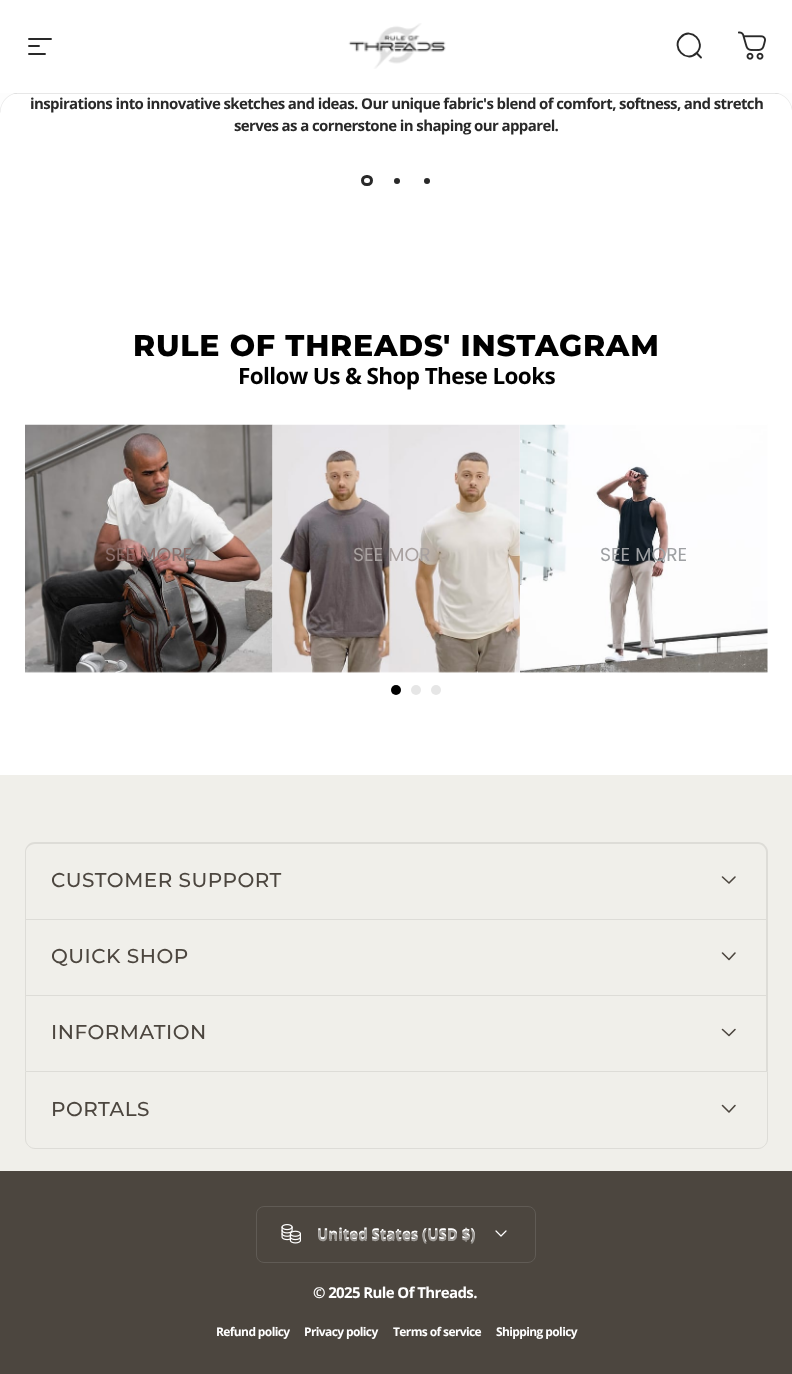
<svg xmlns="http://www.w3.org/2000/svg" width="792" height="1374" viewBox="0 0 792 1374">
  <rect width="100%" height="100%" fill="rgb(255,255,255)"/>
  <path d="M29 39H51M29 46H39M29 54H45" fill="none" stroke="rgb(41,41,41)" stroke-width="1.9" stroke-linecap="round"/>
  <image x="348" y="23" width="98" height="46" href="pic1.png"/>
  <path d="M701 57.5L696.5 53M696.5 53C707 42.5 691 26.5 681 37C670.5 47.5 686.5 63.5 696.5 53Z" fill="none" stroke="rgb(41,41,41)" stroke-width="1.9" stroke-linecap="round"/>
  <image x="738" y="31" width="28" height="29" href="pic2.png"/>
  <rect x="13" y="93" width="767" height="1" fill="rgb(231,231,231)"/>
  <image x="0" y="93" width="17" height="20" href="pic3.png"/>
  <image x="775" y="93" width="17" height="17" href="pic4.png"/>
  <g font-family="Open Sans" font-size="15" font-weight="bold" letter-spacing="-0.61" fill="rgb(41,41,41)">
    <text x="30" y="109">inspirations into innovative sketches and ideas. Our unique fabric's blend of comfort, softness, and stretch</text>
    <text x="234" y="131">serves as a cornerstone in shaping our apparel.</text>
  </g>
  <rect x="362.5" y="176.5" width="9" height="8" rx="4" fill="none" stroke="rgb(41,41,41)" stroke-width="3"/>
  <circle cx="397" cy="181" r="3" fill="rgb(41,41,41)"/>
  <circle cx="427" cy="181" r="3" fill="rgb(41,41,41)"/>
  <text x="133" y="356" font-family="Montserrat" font-size="30" font-weight="800" letter-spacing="0.75" fill="rgb(0,0,0)">RULE OF THREADS' INSTAGRAM</text>
  <text x="238" y="384" font-family="Open Sans" font-size="22.5" font-weight="bold" letter-spacing="-0.61" fill="rgb(0,0,0)">Follow Us &amp; Shop These Looks</text>
  <image x="25" y="424" width="248" height="249" href="pic5.png"/>
  <text x="105" y="561" font-family="Poppins" font-size="18.75" fill="rgb(139,111,107)">SEE MORE</text>
  <image x="272" y="424" width="248" height="249" href="pic6.png"/>
  <text x="353" y="561" font-family="Poppins" font-size="18.75" fill="rgb(168,161,160)">SEE MOR</text>
  <image x="520" y="424" width="248" height="249" href="pic7.png"/>
  <text x="600" y="561" font-family="Poppins" font-size="18.75" fill="rgb(158,160,163)">SEE MORE</text>
  <circle cx="396" cy="690" r="5" fill="rgb(0,0,0)"/>
  <circle cx="416" cy="690" r="5" fill="rgb(230,230,230)"/>
  <circle cx="436" cy="690" r="5" fill="rgb(230,230,230)"/>
  <rect x="0" y="775" width="792" height="396" fill="rgb(240,239,234)"/>
  <path d="M35 842H758C763 842 768 847 768 852V919H25V852C25 847 29 842 35 842ZM35 844H758C762 844 766 848 766 852V919H26V852C26 848 30 844 35 844Z" fill="rgb(221,220,215)" fill-rule="evenodd"/>
  <text x="51" y="887" font-family="Montserrat" font-size="20" font-weight="500" letter-spacing="0.5" fill="rgb(76,70,63)">CUSTOMER SUPPORT</text>
  <path d="M722.5 877L729 883L735 877" fill="none" stroke="rgb(76,70,63)" stroke-width="1.6" stroke-linecap="round" stroke-linejoin="round"/>
  <path d="M25 919H768L766 920H26Z" fill="rgb(221,220,215)"/>
  <path d="M768 919V995H766V920Z" fill="rgba(76,70,63,0.11)"/>
  <path d="M25 995V919L26 920V995Z" fill="rgba(76,70,63,0.11)"/>
  <text x="51" y="963" font-family="Montserrat" font-size="20" font-weight="500" letter-spacing="0.5" fill="rgb(76,70,63)">QUICK SHOP</text>
  <path d="M722.5 953L729 959.5L735 953" fill="none" stroke="rgb(76,70,63)" stroke-width="1.6" stroke-linecap="round" stroke-linejoin="round"/>
  <path d="M25 995H768L766 996H26Z" fill="rgb(221,220,215)"/>
  <path d="M768 995V1071H766V996Z" fill="rgba(76,70,63,0.11)"/>
  <path d="M25 1071V995L26 996V1071Z" fill="rgba(76,70,63,0.11)"/>
  <text x="51" y="1039" font-family="Montserrat" font-size="20" font-weight="500" letter-spacing="0.5" fill="rgb(76,70,63)">INFORMATION</text>
  <path d="M722.5 1029.5L729 1035.5L735 1029.5" fill="none" stroke="rgb(76,70,63)" stroke-width="1.6" stroke-linecap="round" stroke-linejoin="round"/>
  <path d="M25.5 1071.5H767.5V1139C767.5 1144 763 1148.5 758 1148.5H35C30 1148.5 25.5 1144 25.5 1139Z" fill="none" stroke="rgb(221,220,215)"/>
  <text x="51" y="1116" font-family="Montserrat" font-size="20" font-weight="500" letter-spacing="0.5" fill="rgb(76,70,63)">PORTALS</text>
  <path d="M722.5 1105.5L729 1112L735 1105.5" fill="none" stroke="rgb(76,70,63)" stroke-width="1.6" stroke-linecap="round" stroke-linejoin="round"/>
  <rect x="0" y="1171" width="792" height="203" fill="rgb(76,70,63)"/>
  <rect x="256.5" y="1206.5" width="279" height="56" rx="7.5" fill="none" stroke="rgb(96,91,85)"/>
  <image x="281" y="1224" width="20" height="20" href="pic8.png"/>
  <text x="317" y="1239" font-family="Open Sans" font-size="15" font-weight="bold" fill="rgb(255,255,255)">United States (USD $)</text>
  <text x="317" y="1241" font-family="Open Sans" font-size="15" font-weight="bold" fill="rgb(157,154,150)">United States (USD $)</text>
  <path d="M496 1231L501 1236L506 1231" fill="none" stroke="rgb(255,255,255)" stroke-width="1.2" stroke-linecap="round" stroke-linejoin="round"/>
  <text x="313" y="1298" font-family="Open Sans" font-size="15" font-weight="bold" letter-spacing="-0.61" fill="rgb(255,255,255)">© 2025 Rule Of Threads.</text>
  <g font-family="Open Sans" font-size="12" font-weight="bold" letter-spacing="-0.61" fill="rgb(255,255,255)">
    <text x="216" y="1336">Refund policy</text>
    <text x="304" y="1336">Privacy policy</text>
    <text x="393" y="1336">Terms of service</text>
    <text x="496" y="1336">Shipping policy</text>
  </g>
</svg>
